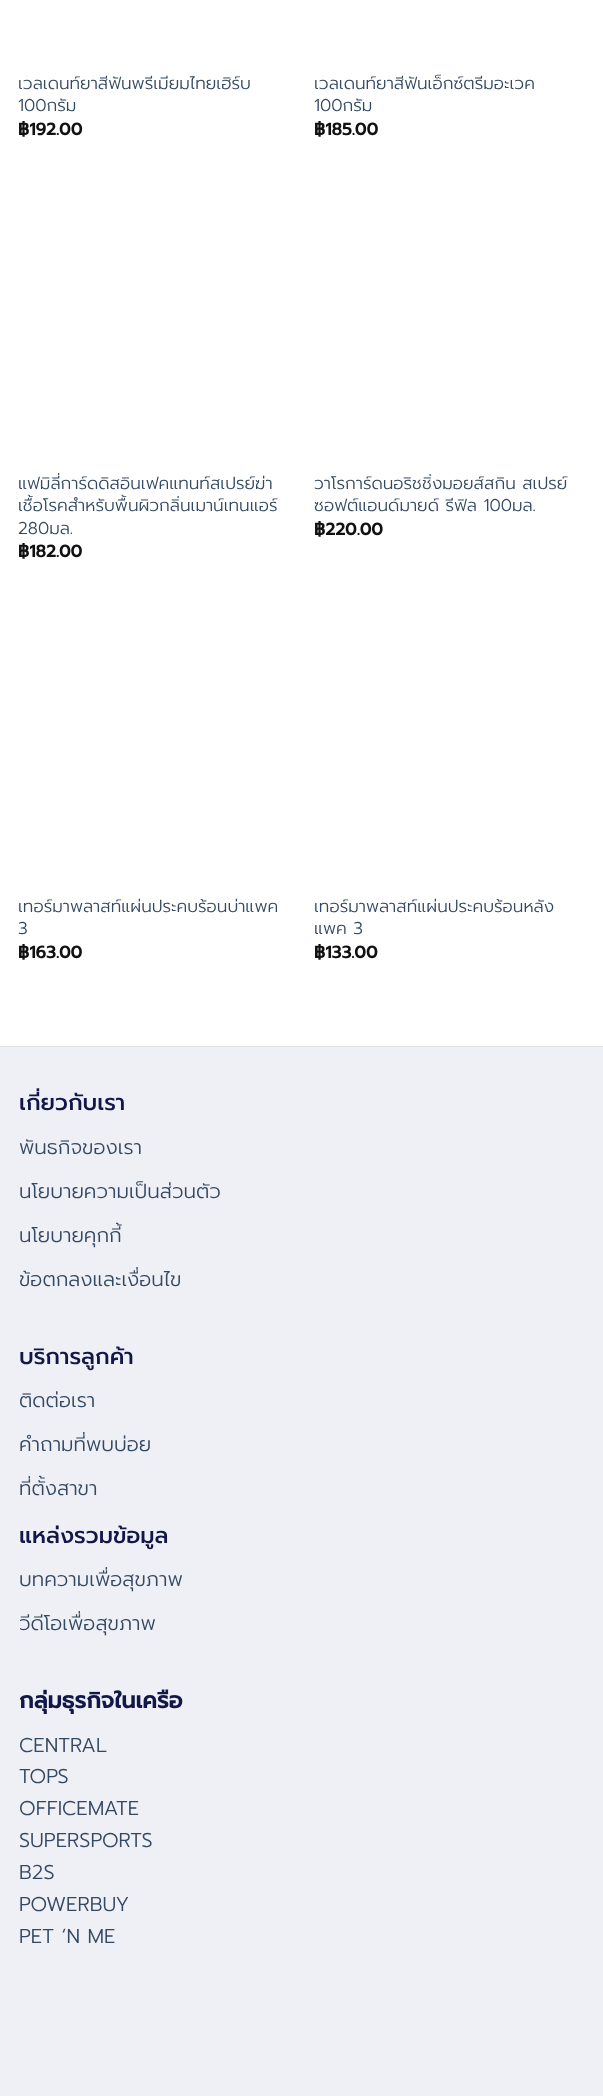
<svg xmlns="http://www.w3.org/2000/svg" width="603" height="2096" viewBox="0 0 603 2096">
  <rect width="100%" height="100%" fill="rgb(255,255,255)"/>
  <g font-family="Prompt" font-size="17" font-weight="300" fill="rgb(51,72,98)">
    <text>
      <tspan x="18" y="89">เวลเดนท์ยาสีฟันพรีเมียมไทยเฮิร์บ</tspan>
      <tspan x="18" y="111">100กรัม</tspan>
    </text>
  </g>
  <text x="18" y="135" font-family="Prompt" font-size="17" font-weight="bold" fill="rgb(17,17,17)">฿192.00</text>
  <g font-family="Prompt" font-size="17" font-weight="300" fill="rgb(51,72,98)">
    <text>
      <tspan x="314" y="89">เวลเดนท์ยาสีฟันเอ็กซ์ตรีมอะเวค</tspan>
      <tspan x="314" y="111">100กรัม</tspan>
    </text>
  </g>
  <text x="314" y="135" font-family="Prompt" font-size="17" font-weight="bold" fill="rgb(17,17,17)">฿185.00</text>
  <g font-family="Prompt" font-size="17" font-weight="300" fill="rgb(51,72,98)">
    <text>
      <tspan x="18" y="489">แฟมิลี่การ์ดดิสอินเฟคแทนท์สเปรย์ฆ่า</tspan>
      <tspan x="18" y="511">เชื้อโรคสำหรับพื้นผิวกลิ่นเมาน์เทนแอร์</tspan>
      <tspan x="18" y="534">280มล.</tspan>
    </text>
  </g>
  <text x="18" y="557" font-family="Prompt" font-size="17" font-weight="bold" fill="rgb(17,17,17)">฿182.00</text>
  <g font-family="Prompt" font-size="17" font-weight="300" fill="rgb(51,72,98)">
    <text>
      <tspan x="314" y="489">วาโรการ์ดนอริชชิ่งมอยส์สกิน สเปรย์</tspan>
      <tspan x="314" y="511">ซอฟต์แอนด์มายด์ รีฟิล 100มล.</tspan>
    </text>
  </g>
  <text x="314" y="535" font-family="Prompt" font-size="17" font-weight="bold" fill="rgb(17,17,17)">฿220.00</text>
  <g font-family="Prompt" font-size="17" font-weight="300" fill="rgb(51,72,98)">
    <text>
      <tspan x="18" y="912">เทอร์มาพลาสท์แผ่นประคบร้อนบ่าแพค</tspan>
      <tspan x="18" y="934">3</tspan>
    </text>
  </g>
  <text x="18" y="958" font-family="Prompt" font-size="17" font-weight="bold" fill="rgb(17,17,17)">฿163.00</text>
  <g font-family="Prompt" font-size="17" font-weight="300" fill="rgb(51,72,98)">
    <text>
      <tspan x="314" y="912">เทอร์มาพลาสท์แผ่นประคบร้อนหลัง</tspan>
      <tspan x="314" y="934">แพค 3</tspan>
    </text>
  </g>
  <text x="314" y="958" font-family="Prompt" font-size="17" font-weight="bold" fill="rgb(17,17,17)">฿133.00</text>
  <rect x="0" y="1047" width="603" height="1049" fill="rgb(239,240,246)"/>
  <rect x="0" y="1046" width="603" height="1" fill="rgb(227,228,234)"/>
  <text x="19" y="1110" font-family="Prompt" font-size="22.5" font-weight="500" fill="rgb(17,23,72)">เกี่ยวกับเรา</text>
  <g font-family="Prompt" font-size="20" font-weight="300" fill="rgb(51,72,98)">
    <text x="19" y="1154">พันธกิจของเรา</text>
    <text x="19" y="1198">นโยบายความเป็นส่วนตัว</text>
    <text x="19" y="1242">นโยบายคุกกี้</text>
    <text x="19" y="1286">ข้อตกลงและเงื่อนไข</text>
  </g>
  <text x="19" y="1364" font-family="Prompt" font-size="22.5" font-weight="500" fill="rgb(17,23,72)">บริการลูกค้า</text>
  <g font-family="Prompt" font-size="20" font-weight="300" fill="rgb(51,72,98)">
    <text x="19" y="1407">ติดต่อเรา</text>
    <text x="19" y="1451">คําถามที่พบบ่อย</text>
    <text x="19" y="1495">ที่ตั้งสาขา</text>
  </g>
  <text x="19" y="1543" font-family="Prompt" font-size="22.5" font-weight="500" fill="rgb(17,23,72)">แหล่งรวมข้อมูล</text>
  <g font-family="Prompt" font-size="20" font-weight="300" fill="rgb(51,72,98)">
    <text x="19" y="1586">บทความเพื่อสุขภาพ</text>
    <text x="19" y="1630">วีดีโอเพื่อสุขภาพ</text>
  </g>
  <text x="19" y="1708" font-family="Prompt" font-size="22.5" font-weight="bold" fill="rgb(17,23,72)">กลุ่มธุรกิจในเครือ</text>
  <g font-family="Prompt" font-size="20" font-weight="300" fill="rgb(51,72,98)">
    <text>
      <tspan x="19" y="1752">CENTRAL</tspan>
      <tspan x="19" y="1783">TOPS</tspan>
      <tspan x="19" y="1815">OFFICEMATE</tspan>
      <tspan x="19" y="1847">SUPERSPORTS</tspan>
      <tspan x="19" y="1879">B2S</tspan>
      <tspan x="19" y="1911">POWERBUY</tspan>
      <tspan x="19" y="1943">PET ‘N ME</tspan>
    </text>
  </g>
</svg>
